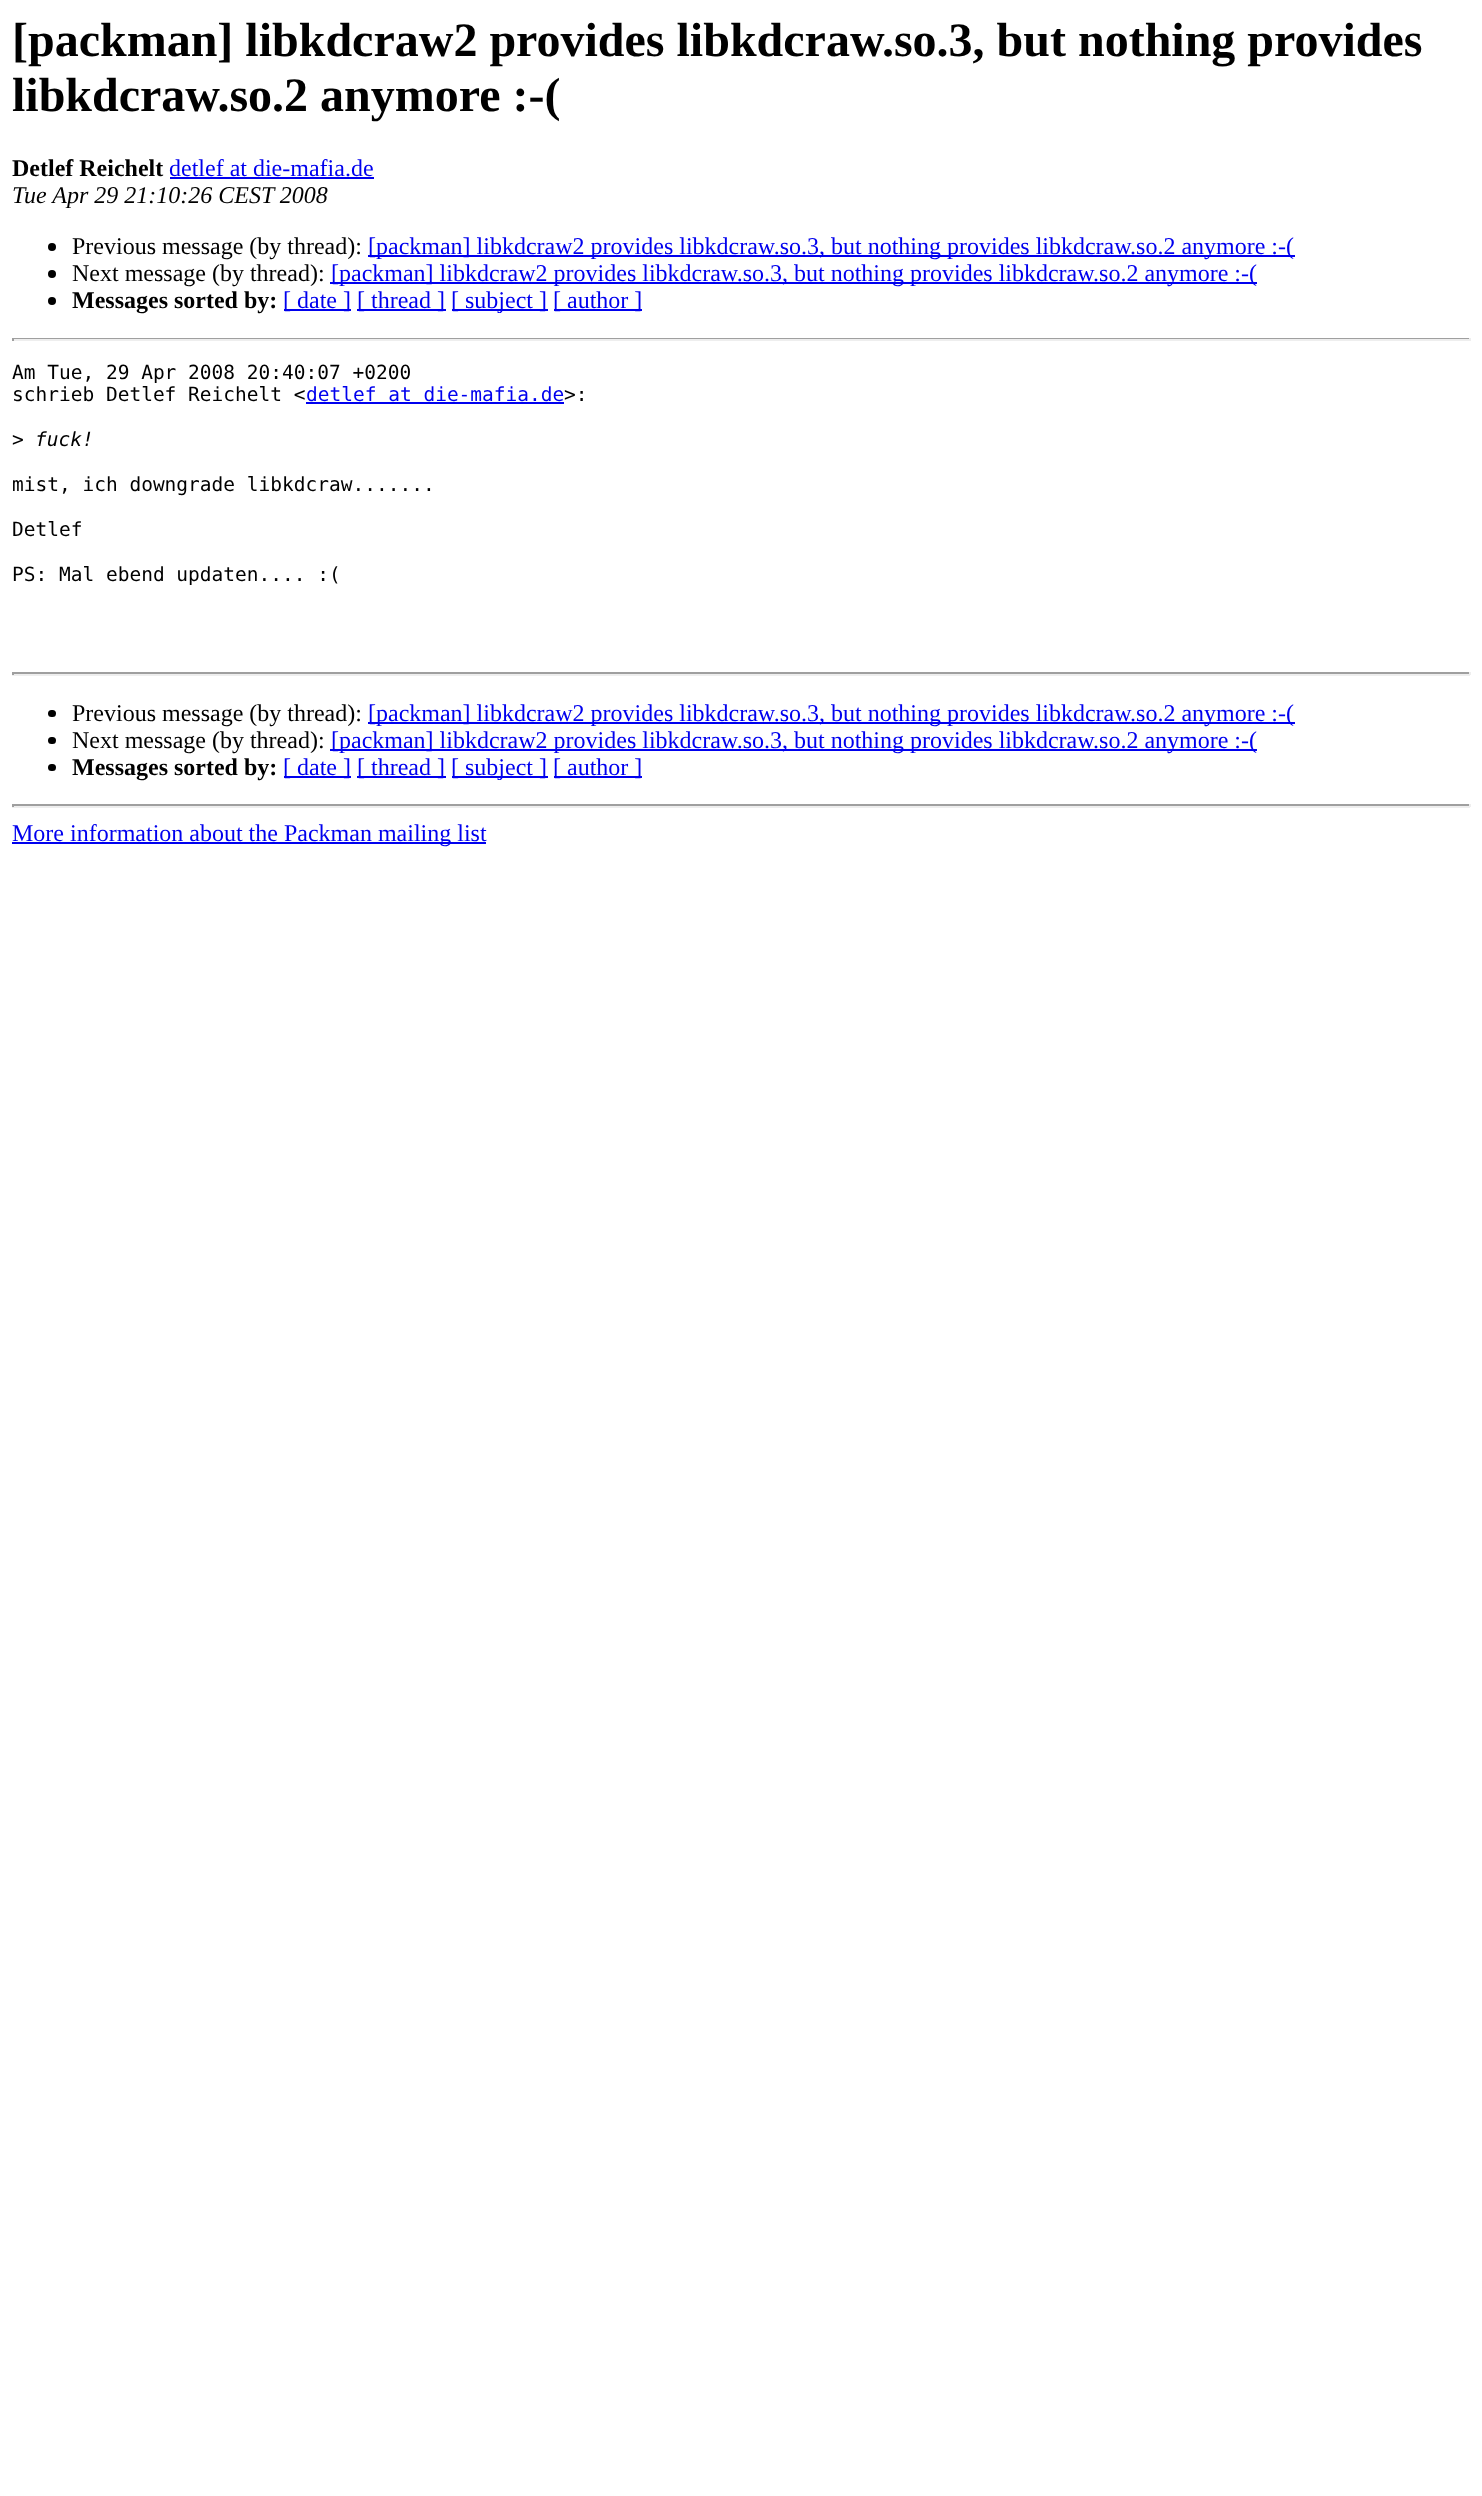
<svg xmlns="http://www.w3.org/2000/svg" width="1482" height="2496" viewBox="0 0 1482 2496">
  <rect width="100%" height="100%" fill="rgb(255,255,255)"/>
  <g font-family="Liberation Serif" font-size="48" font-weight="bold" fill="rgb(0,0,0)">
    <text>
      <tspan x="12" y="56">[packman] libkdcraw2 provides libkdcraw.so.3, but nothing provides</tspan>
      <tspan x="12" y="111">libkdcraw.so.2 anymore :-(</tspan>
    </text>
  </g>
  <text x="12" y="176" font-family="Liberation Serif" font-size="24" font-weight="bold" fill="rgb(0,0,0)">Detlef Reichelt</text>
  <text x="169" y="176" font-family="Liberation Serif" font-size="24" fill="rgb(0,0,238)">detlef at die-mafia.de</text>
  <rect x="170" y="177" width="204" height="2" fill="rgb(0,0,238)"/>
  <text x="12" y="203" font-family="Liberation Serif" font-size="24" font-style="italic" fill="rgb(0,0,0)">Tue Apr 29 21:10:26 CEST 2008</text>
  <circle cx="52" cy="247" r="4" fill="rgb(0,0,0)"/>
  <text x="72" y="254" font-family="Liberation Serif" font-size="24" fill="rgb(0,0,0)">Previous message (by thread):</text>
  <rect x="368" y="255" width="927" height="2" fill="rgb(0,0,238)"/>
  <text x="368" y="254" font-family="Liberation Serif" font-size="24" fill="rgb(0,0,238)">[packman] libkdcraw2 provides libkdcraw.so.3, but nothing provides libkdcraw.so.2 anymore :-(</text>
  <circle cx="52" cy="274" r="4" fill="rgb(0,0,0)"/>
  <text x="72" y="281" font-family="Liberation Serif" font-size="24" fill="rgb(0,0,0)">Next message (by thread):</text>
  <rect x="330" y="282" width="927" height="2" fill="rgb(0,0,238)"/>
  <text x="331" y="281" font-family="Liberation Serif" font-size="24" fill="rgb(0,0,238)">[packman] libkdcraw2 provides libkdcraw.so.3, but nothing provides libkdcraw.so.2 anymore :-(</text>
  <circle cx="52" cy="301" r="4" fill="rgb(0,0,0)"/>
  <text x="72" y="308" font-family="Liberation Serif" font-size="24" font-weight="bold" fill="rgb(0,0,0)">Messages sorted by:</text>
  <rect x="284" y="309" width="67" height="2" fill="rgb(0,0,238)"/>
  <text x="283" y="308" font-family="Liberation Serif" font-size="24" fill="rgb(0,0,238)">[ date ]</text>
  <rect x="357" y="309" width="89" height="2" fill="rgb(0,0,238)"/>
  <text x="357" y="308" font-family="Liberation Serif" font-size="24" fill="rgb(0,0,238)">[ thread ]</text>
  <rect x="452" y="309" width="96" height="2" fill="rgb(0,0,238)"/>
  <text x="451" y="308" font-family="Liberation Serif" font-size="24" fill="rgb(0,0,238)">[ subject ]</text>
  <rect x="554" y="309" width="88" height="2" fill="rgb(0,0,238)"/>
  <text x="553" y="308" font-family="Liberation Serif" font-size="24" fill="rgb(0,0,238)">[ author ]</text>
  <rect x="12" y="338" width="1458" height="1" fill="rgb(159,159,159)"/>
  <rect x="1469" y="338" width="2" height="3" fill="rgb(238,238,238)"/>
  <rect x="12" y="339" width="1458" height="2" fill="rgb(238,238,238)"/>
  <rect x="12" y="338" width="2" height="3" fill="rgb(159,159,159)"/>
  <g font-family="DejaVu Sans Mono" font-size="19.5" fill="rgb(0,0,0)">
    <text>
      <tspan x="12" y="379">Am Tue, 29 Apr 2008 20:40:07 +0200</tspan>
      <tspan x="12" y="401">schrieb Detlef Reichelt &lt;</tspan>
    </text>
  </g>
  <text x="306" y="401" font-family="DejaVu Sans Mono" font-size="19.5" fill="rgb(0,0,238)">detlef at die-mafia.de</text>
  <rect x="306" y="402" width="258" height="2" fill="rgb(0,0,238)"/>
  <g font-family="DejaVu Sans Mono" font-size="19.5" fill="rgb(0,0,0)">
    <text x="564" y="401">&gt;:</text>
    <text x="12" y="446">&gt;</text>
  </g>
  <text x="35" y="446" font-family="DejaVu Sans Mono" font-size="19.5" font-style="italic" fill="rgb(0,0,0)">fuck!</text>
  <g font-family="DejaVu Sans Mono" font-size="19.5" fill="rgb(0,0,0)">
    <text x="12" y="491">mist, ich downgrade libkdcraw.......</text>
    <text x="12" y="536">Detlef</text>
    <text x="12" y="581">PS: Mal ebend updaten.... :(</text>
  </g>
  <rect x="12" y="672" width="1458" height="2" fill="rgb(159,159,159)"/>
  <rect x="1469" y="672" width="2" height="3" fill="rgb(238,238,238)"/>
  <rect x="12" y="674" width="1458" height="2" fill="rgb(238,238,238)"/>
  <rect x="12" y="672" width="2" height="3" fill="rgb(159,159,159)"/>
  <rect x="48" y="710" width="8" height="7" rx="3.5" fill="rgb(0,0,0)"/>
  <text x="72" y="721" font-family="Liberation Serif" font-size="24" fill="rgb(0,0,0)">Previous message (by thread):</text>
  <rect x="368" y="722" width="927" height="2" fill="rgb(0,0,238)"/>
  <text x="368" y="721" font-family="Liberation Serif" font-size="24" fill="rgb(0,0,238)">[packman] libkdcraw2 provides libkdcraw.so.3, but nothing provides libkdcraw.so.2 anymore :-(</text>
  <rect x="48" y="737" width="8" height="7" rx="3.5" fill="rgb(0,0,0)"/>
  <text x="72" y="748" font-family="Liberation Serif" font-size="24" fill="rgb(0,0,0)">Next message (by thread):</text>
  <rect x="330" y="749" width="927" height="2" fill="rgb(0,0,238)"/>
  <text x="331" y="748" font-family="Liberation Serif" font-size="24" fill="rgb(0,0,238)">[packman] libkdcraw2 provides libkdcraw.so.3, but nothing provides libkdcraw.so.2 anymore :-(</text>
  <rect x="48" y="764" width="8" height="7" rx="3.5" fill="rgb(0,0,0)"/>
  <text x="72" y="775" font-family="Liberation Serif" font-size="24" font-weight="bold" fill="rgb(0,0,0)">Messages sorted by:</text>
  <rect x="284" y="776" width="67" height="2" fill="rgb(0,0,238)"/>
  <text x="283" y="775" font-family="Liberation Serif" font-size="24" fill="rgb(0,0,238)">[ date ]</text>
  <rect x="357" y="776" width="89" height="2" fill="rgb(0,0,238)"/>
  <text x="357" y="775" font-family="Liberation Serif" font-size="24" fill="rgb(0,0,238)">[ thread ]</text>
  <rect x="452" y="776" width="96" height="2" fill="rgb(0,0,238)"/>
  <text x="451" y="775" font-family="Liberation Serif" font-size="24" fill="rgb(0,0,238)">[ subject ]</text>
  <rect x="554" y="776" width="88" height="2" fill="rgb(0,0,238)"/>
  <text x="553" y="775" font-family="Liberation Serif" font-size="24" fill="rgb(0,0,238)">[ author ]</text>
  <rect x="12" y="804" width="1458" height="2" fill="rgb(159,159,159)"/>
  <rect x="1469" y="804" width="2" height="3" fill="rgb(238,238,238)"/>
  <rect x="12" y="806" width="1458" height="2" fill="rgb(238,238,238)"/>
  <rect x="12" y="804" width="2" height="3" fill="rgb(159,159,159)"/>
  <rect x="12" y="842" width="474" height="2" fill="rgb(0,0,238)"/>
  <text x="12" y="841" font-family="Liberation Serif" font-size="24" fill="rgb(0,0,238)">More information about the Packman mailing list</text>
</svg>
